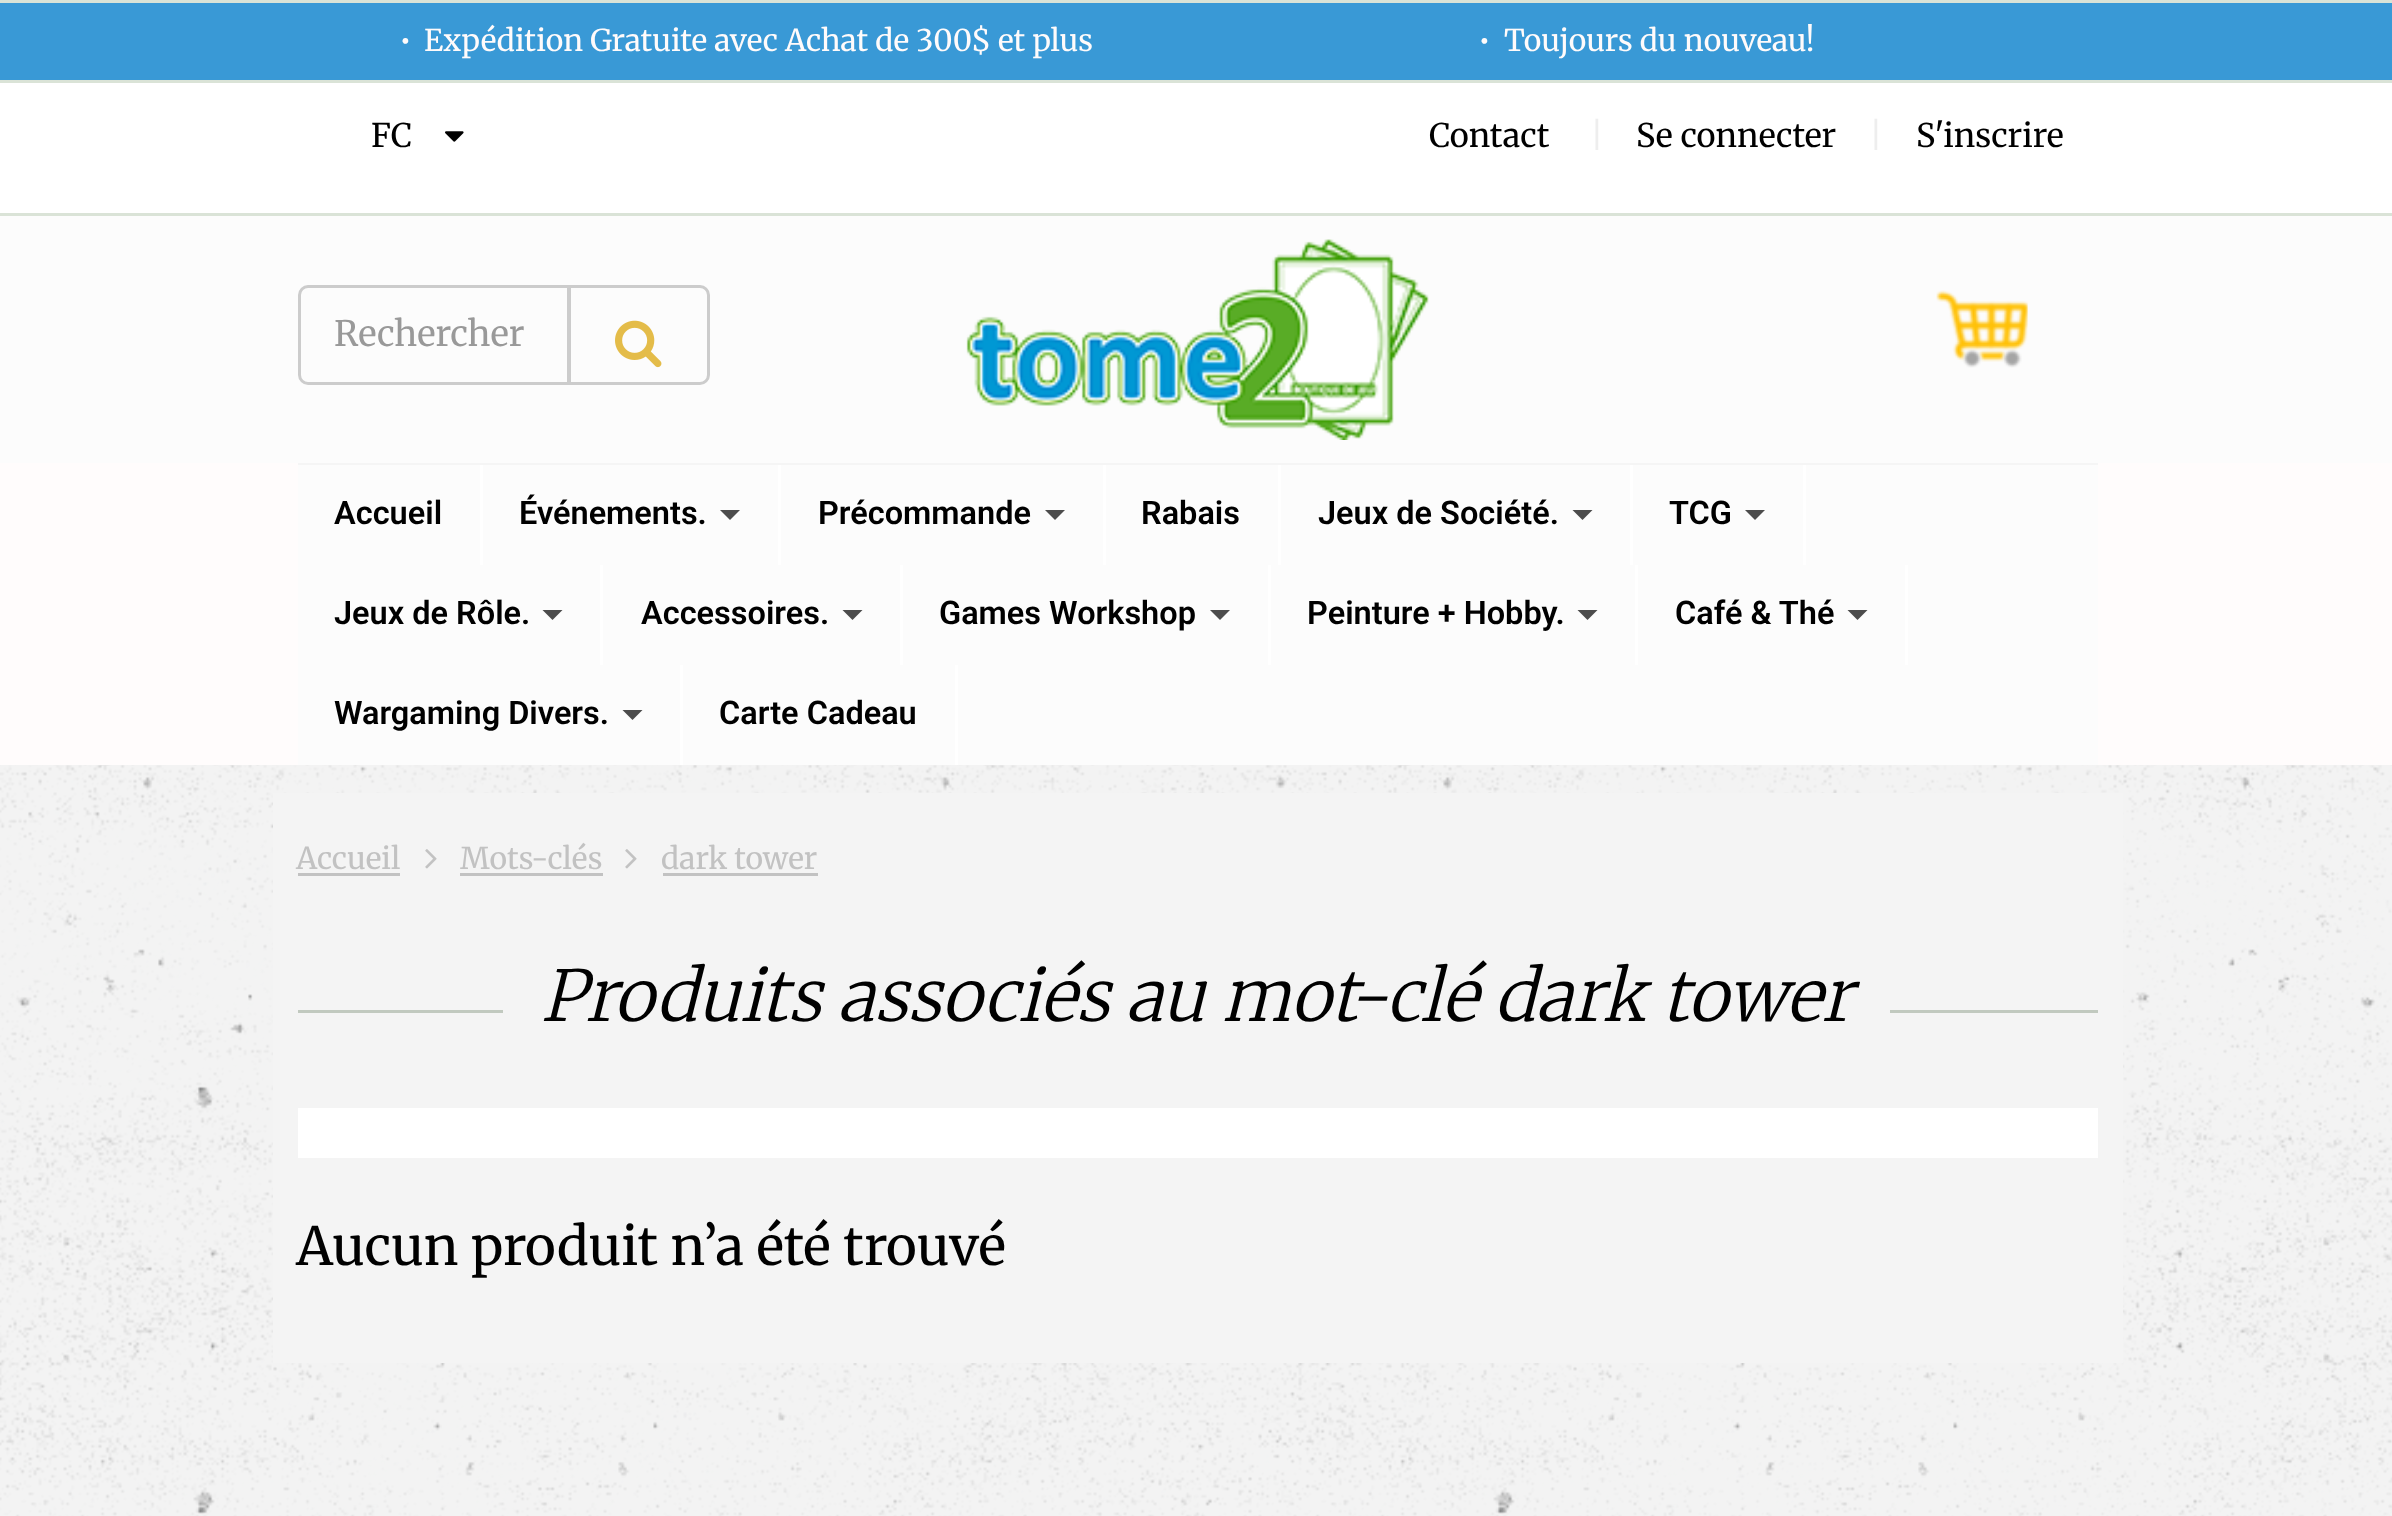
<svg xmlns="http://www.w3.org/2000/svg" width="2392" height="1516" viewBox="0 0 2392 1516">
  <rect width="100%" height="100%" fill="rgb(243,243,243)"/>
  <image x="0" y="765" width="2392" height="751" href="pic1.png"/>
  <rect x="0" y="216" width="2392" height="247" fill="rgb(252,252,252)"/>
  <rect x="0" y="3" width="2392" height="77" fill="rgb(57,153,214)"/>
  <rect x="0" y="0" width="2392" height="3" fill="rgb(218,227,215)"/>
  <g font-family="Merriweather" font-size="30" fill="rgb(255,251,251)">
    <text x="399" y="51">•</text>
    <text x="424" y="51">Expédition Gratuite avec Achat de 300$ et plus</text>
    <text x="1478" y="51">•</text>
    <text x="1504" y="51">Toujours du nouveau!</text>
  </g>
  <rect x="0" y="83" width="2392" height="130" fill="rgb(255,255,255)"/>
  <rect x="0" y="80" width="2392" height="3" fill="rgb(218,227,215)"/>
  <text x="371" y="147" font-family="Merriweather" font-size="32.5" fill="rgb(0,0,0)">FC</text>
  <image x="445" y="131" width="19" height="11" href="pic2.png"/>
  <text x="1429" y="147" font-family="Merriweather" font-size="32.5" fill="rgb(0,0,0)">Contact</text>
  <text x="1590" y="147" font-family="Merriweather" font-size="32.5" fill="rgb(238,238,238)">|</text>
  <text x="1636" y="147" font-family="Merriweather" font-size="32.5" fill="rgb(0,0,0)">Se connecter</text>
  <text x="1869" y="147" font-family="Merriweather" font-size="32.5" fill="rgb(238,238,238)">|</text>
  <text x="1916" y="147" font-family="Merriweather" font-size="32.5" fill="rgb(0,0,0)">S'inscrire</text>
  <rect x="0" y="213" width="2392" height="3" fill="rgb(218,227,215)"/>
  <path d="M308 286.5H568.5V383.5H308C303.5 383.5 299.5 379.5 299.5 375V295C299.5 290.5 303.5 286.5 308 286.5Z" fill="none" stroke="rgb(204,204,204)" stroke-width="3"/>
  <text x="334" y="346" font-family="Merriweather" font-size="35" fill="rgb(153,153,153)">Rechercher</text>
  <path d="M569.5 286.5H700C704.5 286.5 708.5 290.5 708.5 295V375C708.5 379.5 704.5 383.5 700 383.5H569.5Z" fill="rgb(252,252,252)" stroke="rgb(204,204,204)" stroke-width="3"/>
  <image x="615" y="320" width="47" height="48" href="pic3.png"/>
  <image x="966" y="239" width="463" height="201" href="pic4.png"/>
  <image x="1936" y="290" width="92" height="78" href="pic5.png"/>
  <rect x="0" y="463" width="2392" height="302" fill="rgb(255,252,252)"/>
  <rect x="298" y="463" width="1800" height="2" fill="rgb(245,245,245)"/>
  <rect x="298" y="465" width="1800" height="300" fill="rgb(252,252,252)"/>
  <rect x="480" y="465" width="3" height="100" fill="rgb(255,255,255)"/>
  <text x="334" y="524" font-family="Roboto" font-size="32.5" font-weight="600" fill="rgb(0,0,0)">Accueil</text>
  <rect x="778" y="465" width="3" height="100" fill="rgb(255,255,255)"/>
  <text x="519" y="524" font-family="Roboto" font-size="32.5" font-weight="600" fill="rgb(0,0,0)">Événements.</text>
  <path d="M720 510H740L730 520Z" fill="rgb(76,76,76)"/>
  <rect x="1103" y="465" width="3" height="100" fill="rgb(255,255,255)"/>
  <text x="818" y="524" font-family="Roboto" font-size="32.5" font-weight="600" fill="rgb(0,0,0)">Précommande</text>
  <path d="M1045 510H1065L1055 520Z" fill="rgb(76,76,76)"/>
  <rect x="1278" y="465" width="3" height="100" fill="rgb(255,255,255)"/>
  <text x="1141" y="524" font-family="Roboto" font-size="32.5" font-weight="600" fill="rgb(0,0,0)">Rabais</text>
  <rect x="1630" y="465" width="3" height="100" fill="rgb(255,255,255)"/>
  <text x="1318" y="524" font-family="Roboto" font-size="32.5" font-weight="600" fill="rgb(0,0,0)">Jeux de Société.</text>
  <path d="M1572.5 510H1592.5L1582.5 520Z" fill="rgb(76,76,76)"/>
  <rect x="1803" y="465" width="3" height="100" fill="rgb(255,255,255)"/>
  <text x="1669" y="524" font-family="Roboto" font-size="32.5" font-weight="600" fill="rgb(0,0,0)">TCG</text>
  <path d="M1745 510H1765L1755 520Z" fill="rgb(76,76,76)"/>
  <rect x="600" y="565" width="3" height="100" fill="rgb(255,255,255)"/>
  <text x="334" y="624" font-family="Roboto" font-size="32.5" font-weight="600" fill="rgb(0,0,0)">Jeux de Rôle.</text>
  <path d="M542.5 610H562.5L552.5 620Z" fill="rgb(76,76,76)"/>
  <rect x="900" y="565" width="3" height="100" fill="rgb(255,255,255)"/>
  <text x="641" y="624" font-family="Roboto" font-size="32.5" font-weight="600" fill="rgb(0,0,0)">Accessoires.</text>
  <path d="M842.5 610H862.5L852.5 620Z" fill="rgb(76,76,76)"/>
  <rect x="1268" y="565" width="3" height="100" fill="rgb(255,255,255)"/>
  <text x="939" y="624" font-family="Roboto" font-size="32.5" font-weight="600" fill="rgb(0,0,0)">Games Workshop</text>
  <path d="M1210 610H1230L1220 620Z" fill="rgb(76,76,76)"/>
  <rect x="1635" y="565" width="3" height="100" fill="rgb(255,255,255)"/>
  <text x="1307" y="624" font-family="Roboto" font-size="32.5" font-weight="600" fill="rgb(0,0,0)">Peinture + Hobby.</text>
  <path d="M1577.5 610H1597.5L1587.5 620Z" fill="rgb(76,76,76)"/>
  <rect x="1905" y="565" width="3" height="100" fill="rgb(255,255,255)"/>
  <text x="1675" y="624" font-family="Roboto" font-size="32.5" font-weight="600" fill="rgb(0,0,0)">Café &amp; Thé</text>
  <path d="M1847.5 610H1867.5L1857.5 620Z" fill="rgb(76,76,76)"/>
  <rect x="680" y="665" width="3" height="100" fill="rgb(255,255,255)"/>
  <text x="334" y="724" font-family="Roboto" font-size="32.5" font-weight="600" fill="rgb(0,0,0)">Wargaming Divers.</text>
  <path d="M622.5 710H642.5L632.5 720Z" fill="rgb(76,76,76)"/>
  <rect x="955" y="665" width="3" height="100" fill="rgb(255,255,255)"/>
  <text x="719" y="724" font-family="Roboto" font-size="32.5" font-weight="600" fill="rgb(0,0,0)">Carte Cadeau</text>
  <rect x="273" y="793" width="1850" height="570" fill="rgb(244,244,244)"/>
  <text x="296" y="869" font-family="Merriweather" font-size="30" fill="rgb(194,194,194)">Accueil</text>
  <rect x="298" y="873" width="102" height="3" fill="rgb(194,194,194)"/>
  <image x="425" y="849" width="12" height="20" href="pic6.png"/>
  <text x="460" y="869" font-family="Merriweather" font-size="30" fill="rgb(194,194,194)">Mots-clés</text>
  <rect x="460" y="873" width="143" height="3" fill="rgb(194,194,194)"/>
  <image x="625" y="849" width="12" height="20" href="pic6.png"/>
  <text x="661" y="869" font-family="Merriweather" font-size="30" fill="rgb(194,194,194)">dark tower</text>
  <rect x="663" y="873" width="155" height="3" fill="rgb(194,194,194)"/>
  <rect x="298" y="1010" width="1800" height="3" fill="rgb(193,201,191)"/>
  <rect x="503" y="1010" width="1387" height="3" fill="rgb(244,244,244)"/>
  <text x="541" y="1021" font-family="Merriweather" font-size="70" font-weight="300" font-style="italic" fill="rgb(0,0,0)">Produits associés au mot-clé dark tower</text>
  <rect x="298" y="1108" width="1800" height="50" fill="rgb(255,255,255)"/>
  <text x="296" y="1265" font-family="Merriweather" font-size="52.5" fill="rgb(0,0,0)">Aucun produit n’a été trouvé</text>
  <rect x="980" y="1495" width="433" height="21" fill="rgb(243,243,243)"/>
  <image x="980" y="1495" width="433" height="21" href="pic7.png"/>
</svg>
